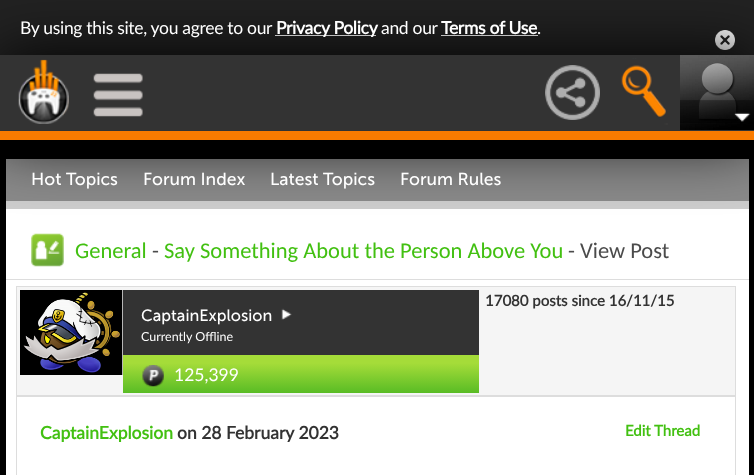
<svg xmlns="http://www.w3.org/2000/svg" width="754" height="475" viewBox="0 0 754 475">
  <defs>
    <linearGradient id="g1" gradientUnits="userSpaceOnUse" x1="123" y1="290" x2="123" y2="393"><stop offset="0" stop-color="rgb(165,220,57)"/><stop offset="0.71" stop-color="rgb(165,220,57)"/><stop offset="1" stop-color="rgb(89,188,37)"/></linearGradient>
  </defs>
  <rect width="100%" height="100%" fill="rgb(0,0,0)"/>
  <rect x="0" y="0" width="754" height="55" fill="rgb(34,34,34)"/>
  <rect x="275" y="35" width="101" height="1" fill="rgb(255,255,255)"/>
  <rect x="441" y="35" width="97" height="1" fill="rgb(255,255,255)"/>
  <image x="715" y="30" width="20" height="20" href="pic7.png"/>
  <rect x="6" y="209" width="743" height="266" fill="rgb(255,255,255)"/>
  <rect x="6" y="159" width="743" height="42" fill="rgb(138,138,138)"/>
  <rect x="6" y="201" width="743" height="8" fill="rgb(205,205,205)"/>
  <image x="31" y="233" width="33" height="34" href="pic8.png"/>
  <rect x="0" y="56" width="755" height="85" fill="rgb(0,0,0)" filter="blur(31px)"/>
  <rect x="0" y="55" width="754" height="76" fill="rgb(51,51,51)"/>
  <image x="18" y="59" width="51" height="65" href="pic1.png"/>
  <image x="93" y="73" width="50" height="44" href="pic2.png"/>
  <image x="545" y="65" width="55" height="55" href="pic3.png"/>
  <image x="621" y="58" width="47" height="67" href="pic4.png"/>
  <image x="680" y="55" width="74" height="75" href="pic5.png"/>
  <image x="680" y="100" width="74" height="23" href="pic6.png"/>
  <rect x="0" y="131" width="754" height="9" fill="rgb(249,123,0)"/>
  <text x="20" y="34" font-family="Lato" font-size="17.5" letter-spacing="-0.3" fill="rgb(255,255,255)">By using this site, you agree to our</text>
  <text x="276" y="34" font-family="Lato" font-size="17.5" font-weight="bold" letter-spacing="-0.3" fill="rgb(255,255,255)">Privacy Policy</text>
  <text x="381" y="34" font-family="Lato" font-size="17.5" letter-spacing="-0.3" fill="rgb(255,255,255)">and our</text>
  <text x="441" y="34" font-family="Lato" font-size="17.5" font-weight="bold" letter-spacing="-0.3" fill="rgb(255,255,255)">Terms of Use</text>
  <text x="537" y="34" font-family="Lato" font-size="17.5" letter-spacing="-0.3" fill="rgb(255,255,255)">.</text>
  <g font-family="Museo Sans" font-size="17.5" fill="rgb(255,255,255)">
    <text x="31" y="185">Hot Topics</text>
    <text x="143" y="185">Forum Index</text>
    <text x="270" y="185">Latest Topics</text>
    <text x="400" y="185">Forum Rules</text>
  </g>
  <text x="75" y="258" font-family="Carlito" font-size="22.5" fill="rgb(66,192,17)">General</text>
  <text x="152" y="258" font-family="Carlito" font-size="22.5" fill="rgb(75,75,75)">-</text>
  <text x="164" y="258" font-family="Carlito" font-size="22.5" fill="rgb(66,192,17)">Say Something About the Person Above You</text>
  <text x="568" y="258" font-family="Carlito" font-size="22.5" fill="rgb(75,75,75)">- View Post</text>
  <rect x="6" y="279" width="743" height="1" fill="rgb(221,221,221)"/>
  <rect x="16.5" y="286.5" width="719" height="109" fill="rgb(245,245,245)" stroke="rgb(221,221,221)"/>
  <image x="20" y="290" width="103" height="85" href="pic9.png"/>
  <text x="485" y="306" font-family="Lato" font-size="15" font-weight="bold" fill="rgb(51,51,51)">17080 posts since 16/11/15</text>
  <rect x="123" y="355" width="356" height="38" fill="url(#g1)"/>
  <rect x="123" y="290" width="356" height="65" fill="rgb(51,51,51)"/>
  <image x="281" y="308" width="11" height="12" href="pic10.png"/>
  <text x="141" y="321" font-family="Museo Sans" font-size="16.25" fill="rgb(255,255,255)">CaptainExplosion</text>
  <text x="141" y="341" font-family="Lato" font-size="12.5" fill="rgb(255,255,255)">Currently Offline</text>
  <image x="142" y="365" width="22" height="22" href="pic11.png"/>
  <text x="174" y="381" font-family="Lato" font-size="17.5" fill="rgb(255,255,255)">125,399</text>
  <rect x="16.5" y="396.5" width="719" height="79" fill="none" stroke="rgb(221,221,221)"/>
  <text x="40" y="439" font-family="Lato" font-size="17.5" font-weight="bold" fill="rgb(66,192,17)">CaptainExplosion</text>
  <text x="177" y="439" font-family="Lato" font-size="17.5" font-weight="bold" fill="rgb(51,51,51)">on 28 February 2023</text>
  <text x="625" y="436" font-family="Lato" font-size="15" font-weight="bold" fill="rgb(66,192,17)">Edit Thread</text>
</svg>
